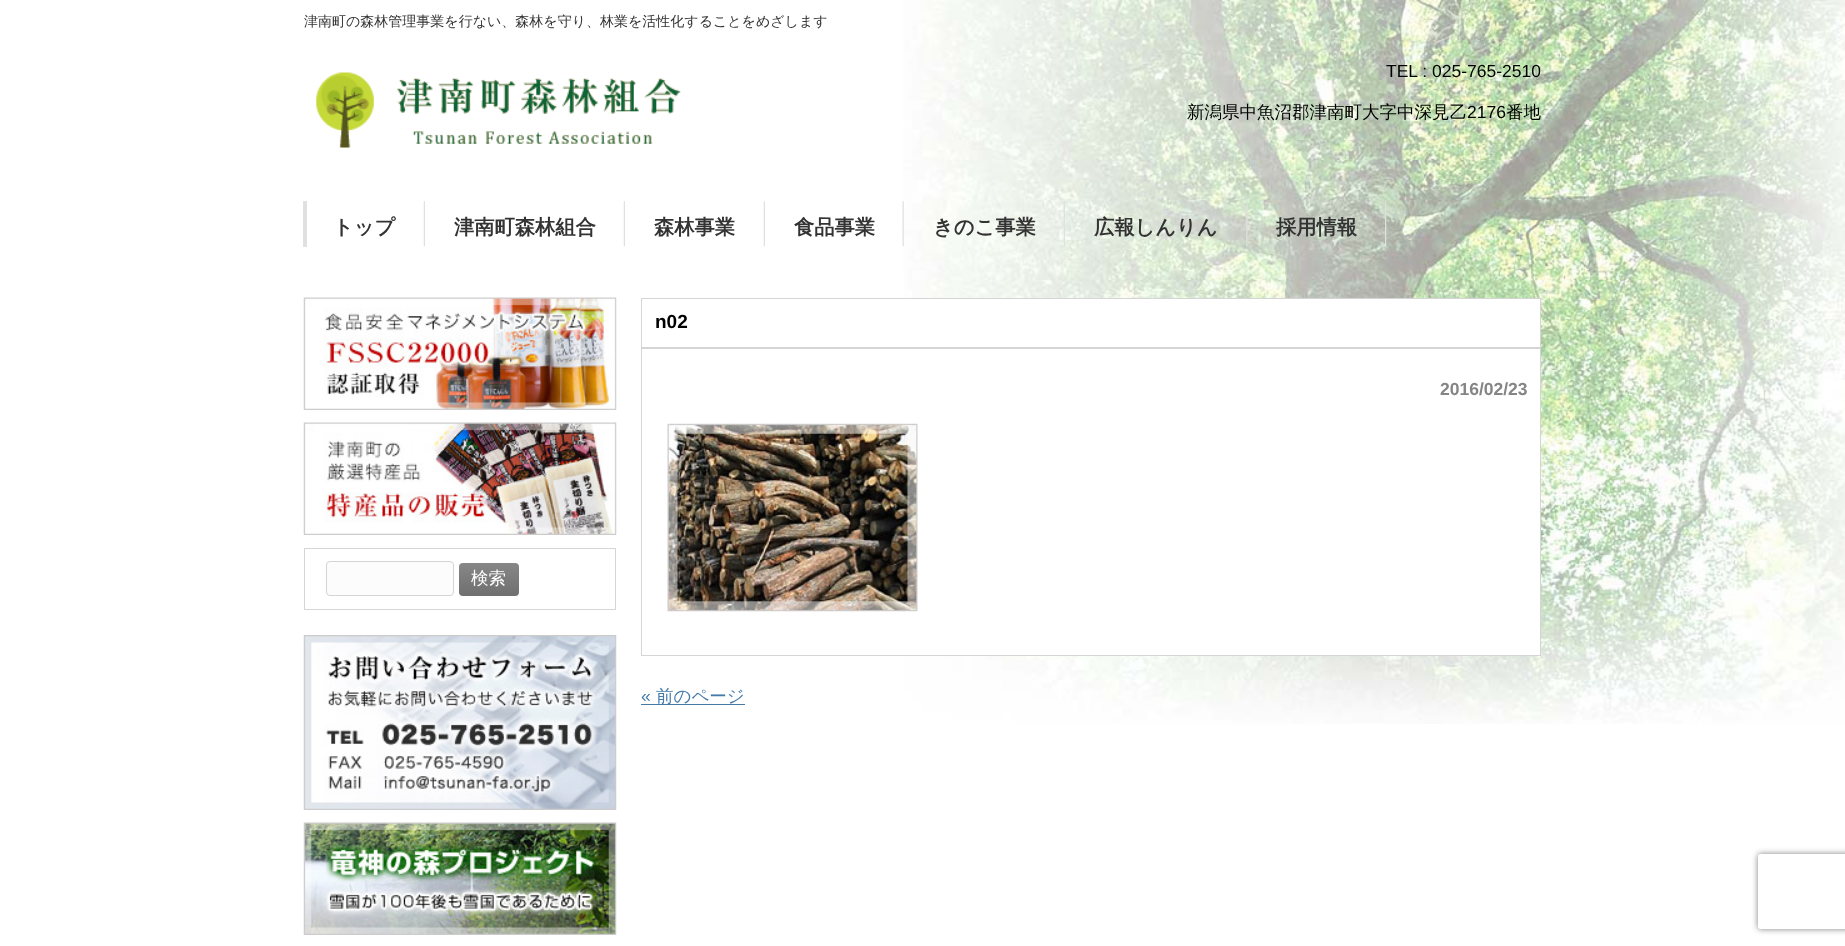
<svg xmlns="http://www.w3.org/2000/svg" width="1845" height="946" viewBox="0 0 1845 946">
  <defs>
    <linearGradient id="g1" gradientUnits="userSpaceOnUse" x1="489" y1="563" x2="489" y2="596"><stop offset="0" stop-color="rgb(135,135,135)"/><stop offset="1" stop-color="rgb(111,111,111)"/></linearGradient>
    <clipPath id="clip1"><path d="M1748 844H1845V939H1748ZM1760.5 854H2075.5C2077 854 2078 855 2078 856.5V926.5C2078 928 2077 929 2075.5 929H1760.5C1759 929 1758 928 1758 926.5V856.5C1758 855 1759 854 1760.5 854Z" clip-rule="evenodd"/></clipPath>
  </defs>
  <rect width="100%" height="100%" fill="rgb(255,255,255)"/>
  <image x="903" y="0" width="942" height="724" href="pic1.png"/>
  <text x="304" y="26" font-family="WenQuanYi Zen Hei" font-size="14" font-weight="500" fill="rgb(51,51,51)">津南町の森林管理事業を行ない、森林を守り、林業を活性化することをめざします</text>
  <image x="316" y="72" width="365" height="76" href="pic2.png"/>
  <text x="1386" y="77" font-family="Liberation Sans" font-size="17.5" fill="rgb(0,0,0)">TEL : 025-765-2510</text>
  <text x="1187" y="118" font-family="WenQuanYi Zen Hei" font-size="17.5" font-weight="500" fill="rgb(0,0,0)">新潟県中魚沼郡津南町大字中深見乙</text>
  <text x="1467" y="118" font-family="Liberation Sans" font-size="17.5" fill="rgb(0,0,0)">2176</text>
  <text x="1506" y="118" font-family="WenQuanYi Zen Hei" font-size="17.5" font-weight="500" fill="rgb(0,0,0)">番地</text>
  <rect x="303" y="201" width="4" height="46" fill="rgb(224,224,224)"/>
  <image x="423" y="201" width="2" height="46" href="pic3.png"/>
  <text x="333" y="234" font-family="WenQuanYi Zen Hei" font-size="20.25" font-weight="bold" fill="rgb(51,51,51)">トップ</text>
  <image x="623" y="201" width="2" height="46" href="pic3.png"/>
  <text x="454" y="234" font-family="WenQuanYi Zen Hei" font-size="20.25" font-weight="bold" fill="rgb(51,51,51)">津南町森林組合</text>
  <image x="763" y="201" width="2" height="46" href="pic3.png"/>
  <text x="654" y="234" font-family="WenQuanYi Zen Hei" font-size="20.25" font-weight="bold" fill="rgb(51,51,51)">森林事業</text>
  <image x="902" y="201" width="2" height="46" href="pic4.png"/>
  <text x="794" y="234" font-family="WenQuanYi Zen Hei" font-size="20.25" font-weight="bold" fill="rgb(51,51,51)">食品事業</text>
  <image x="1063" y="201" width="2" height="45" href="pic5.png"/>
  <text x="933" y="234" font-family="WenQuanYi Zen Hei" font-size="20.25" font-weight="bold" fill="rgb(51,51,51)">きのこ事業</text>
  <image x="1246" y="201" width="2" height="46" href="pic6.png"/>
  <text x="1094" y="234" font-family="WenQuanYi Zen Hei" font-size="20.25" font-weight="bold" fill="rgb(51,51,51)">広報しんりん</text>
  <image x="1385" y="201" width="2" height="46" href="pic7.png"/>
  <text x="1276" y="234" font-family="WenQuanYi Zen Hei" font-size="20.25" font-weight="bold" fill="rgb(51,51,51)">採用情報</text>
  <image x="303" y="297" width="314" height="113" href="pic8.png"/>
  <image x="303" y="422" width="314" height="113" href="pic9.png"/>
  <rect x="304.5" y="548.5" width="311" height="61" fill="none" stroke="rgb(213,213,213)"/>
  <rect x="326.5" y="561.5" width="127" height="34" rx="3.5" fill="rgb(252,252,252)" stroke="rgb(212,212,215)"/>
  <rect x="459" y="563" width="60" height="33" rx="4" fill="url(#g1)"/>
  <text x="471" y="584" font-family="WenQuanYi Zen Hei" font-size="17.5" font-weight="500" fill="rgb(255,255,255)">検索</text>
  <image x="303" y="635" width="314" height="175" href="pic10.png"/>
  <image x="303" y="822" width="314" height="113" href="pic11.png"/>
  <rect x="903" y="299" width="637" height="48" fill="rgb(255,255,255)"/>
  <rect x="641.5" y="298.5" width="899" height="49" fill="none" stroke="rgb(213,213,213)"/>
  <text x="655" y="328" font-family="Liberation Sans" font-size="19" font-weight="bold" fill="rgb(0,0,0)">n02</text>
  <rect x="903" y="349" width="637" height="306" fill="rgb(255,255,255)"/>
  <rect x="641.5" y="348.5" width="899" height="307" fill="none" stroke="rgb(213,213,213)"/>
  <text x="1440" y="395" font-family="Liberation Sans" font-size="17.5" font-weight="bold" fill="rgb(133,133,133)">2016/02/23</text>
  <image x="667" y="423" width="251" height="189" href="pic12.png"/>
  <text x="641" y="702" font-family="Liberation Sans" font-size="17.5" fill="rgb(70,123,168)">«</text>
  <rect x="641" y="704" width="104" height="1" fill="rgb(70,123,168)"/>
  <text x="656" y="702" font-family="WenQuanYi Zen Hei" font-size="17.5" font-weight="500" fill="rgb(70,123,168)">前のページ</text>
  <g clip-path="url(#clip1)">
    <rect x="1758" y="854" width="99" height="75" rx="2.5" fill="rgb(128,128,128)" filter="blur(3px)"/>
  </g>
</svg>
